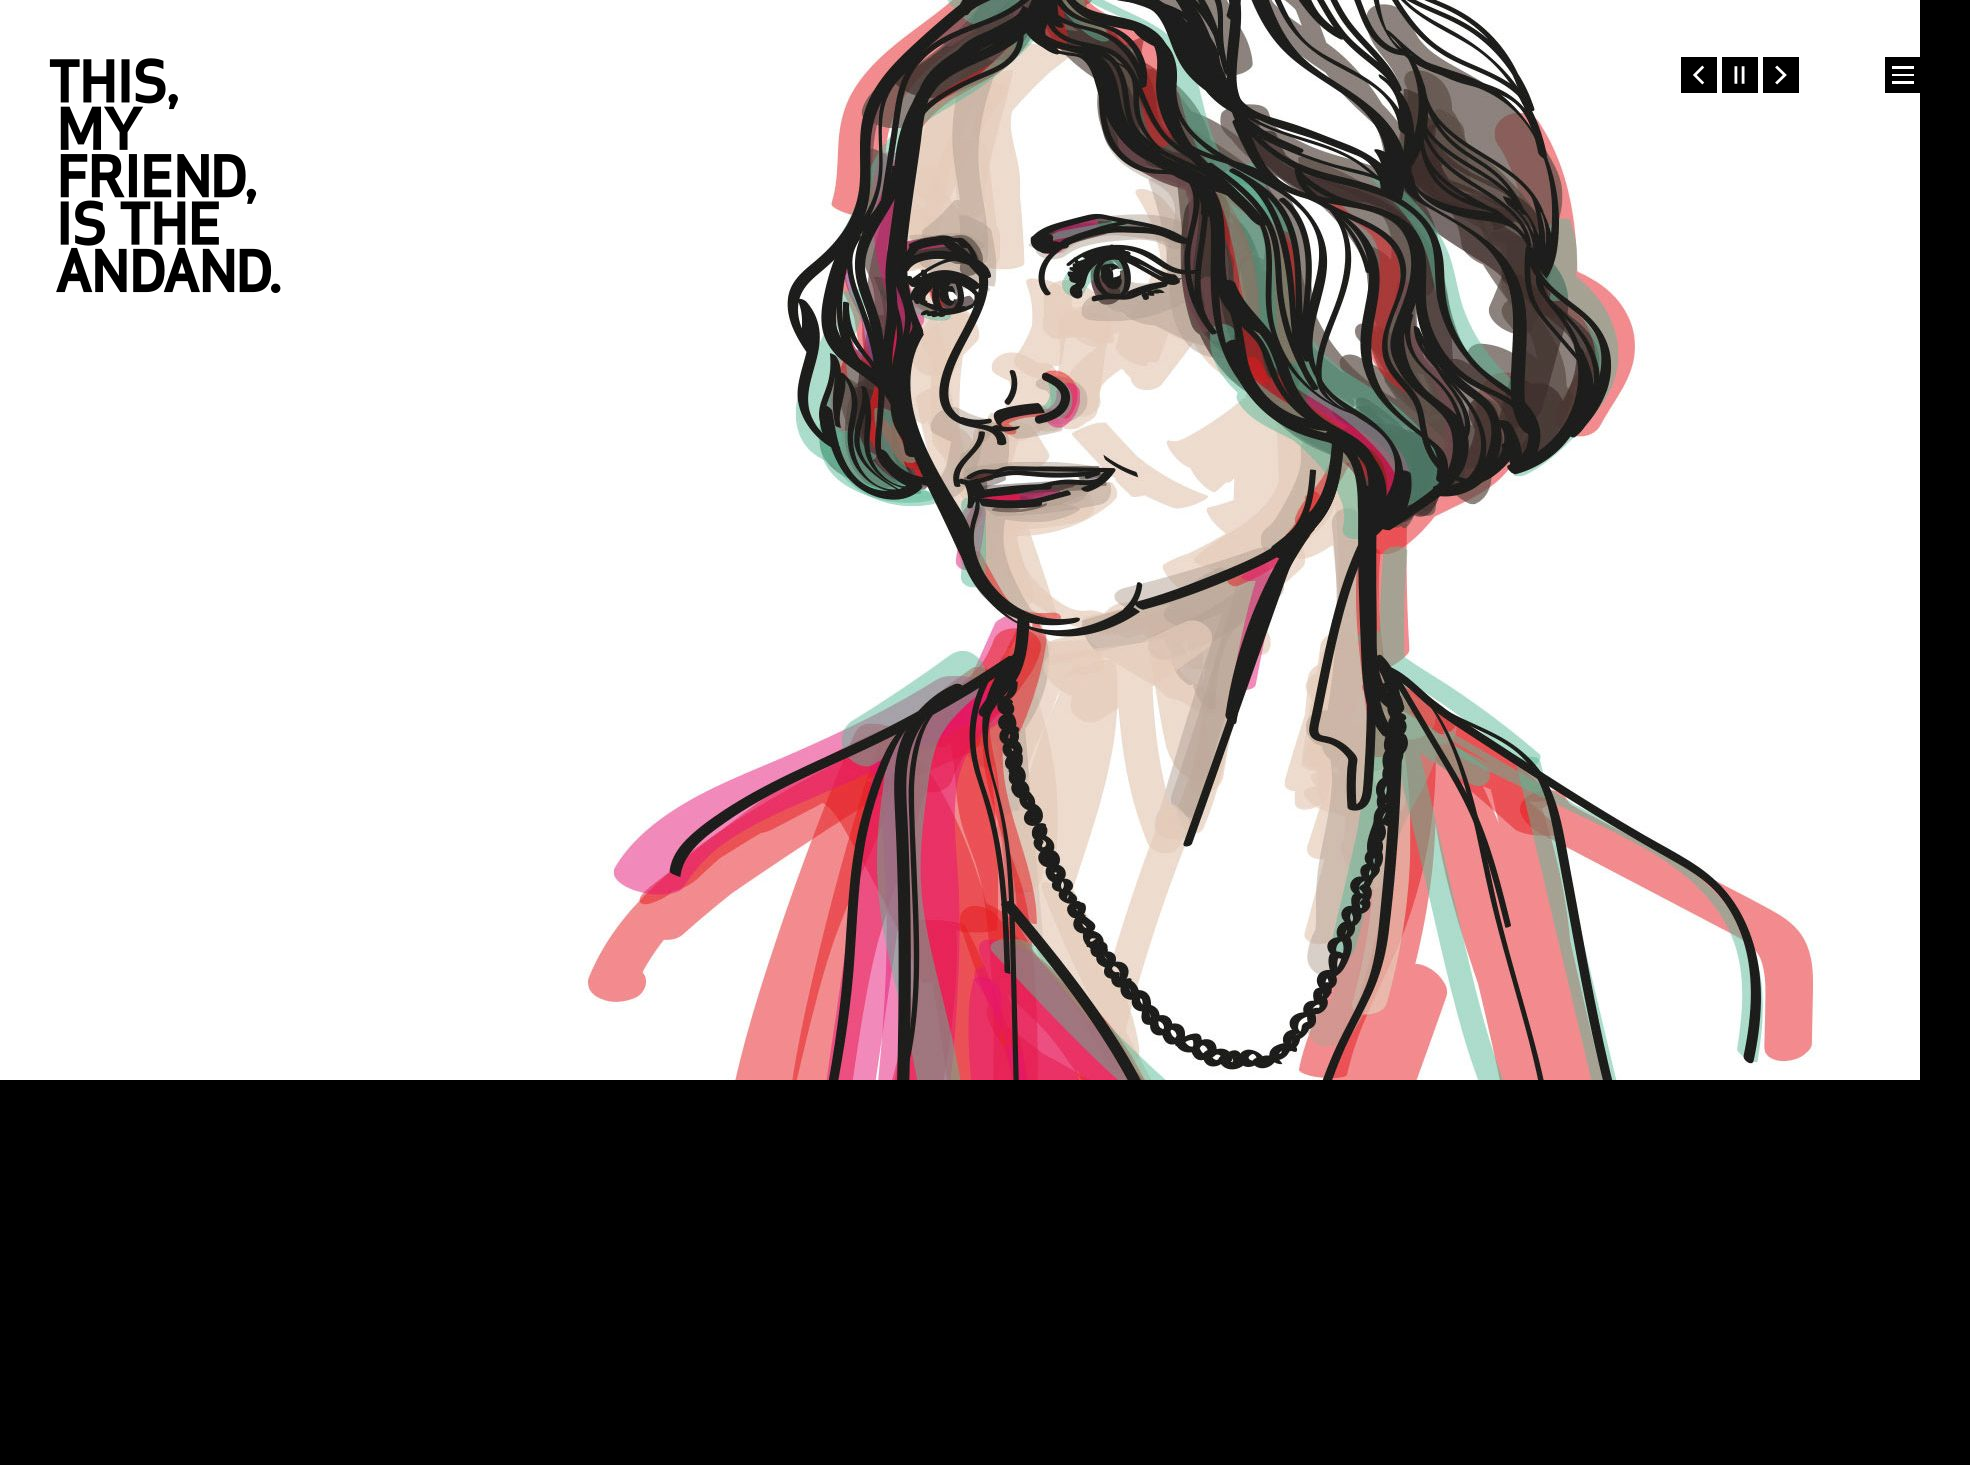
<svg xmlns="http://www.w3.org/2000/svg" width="1970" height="1465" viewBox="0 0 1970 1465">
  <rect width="100%" height="100%" fill="rgb(0,0,0)"/>
  <image x="0" y="0" width="1920" height="1080" href="pic1.png"/>
  <image x="49" y="58" width="232" height="235" href="pic2.png"/>
  <image x="1681" y="57" width="36" height="36" href="pic3.png"/>
  <image x="1763" y="57" width="36" height="36" href="pic4.png"/>
  <image x="1722" y="57" width="36" height="36" href="pic5.png"/>
  <rect x="1885" y="57" width="35" height="36" fill="rgb(0,0,0)"/>
  <rect x="1892" y="66" width="22" height="3" fill="rgb(255,255,255)"/>
  <rect x="1892" y="74" width="22" height="2" fill="rgb(255,255,255)"/>
  <rect x="1892" y="81" width="22" height="3" fill="rgb(255,255,255)"/>
</svg>
